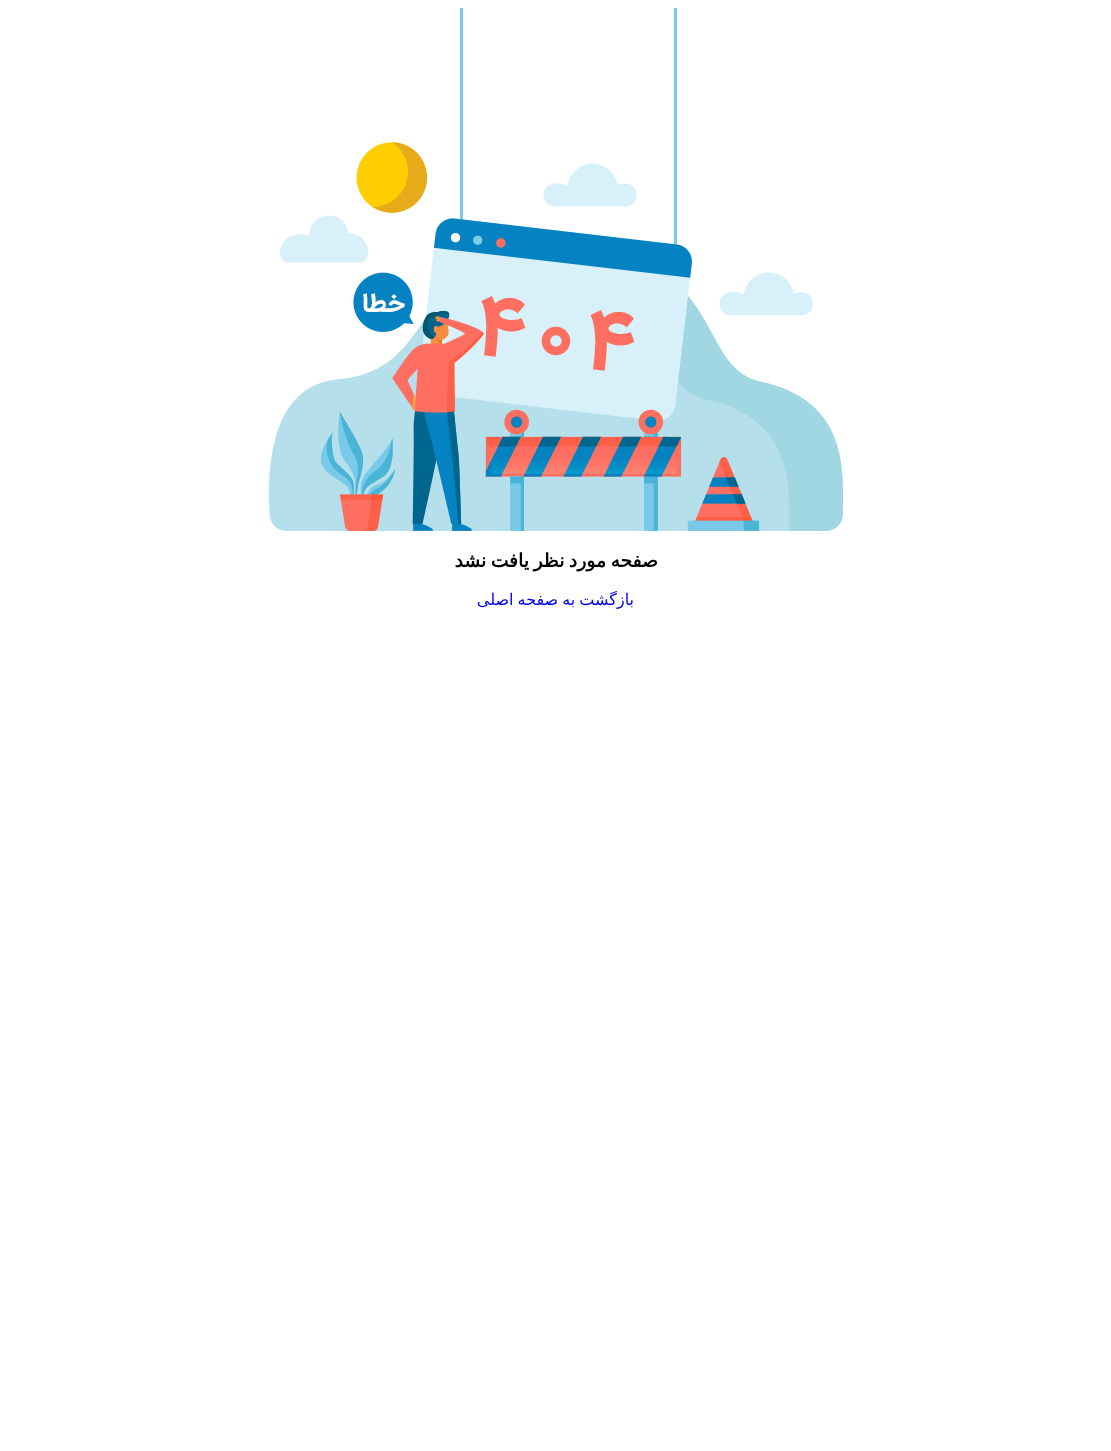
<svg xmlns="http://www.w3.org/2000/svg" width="1111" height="1451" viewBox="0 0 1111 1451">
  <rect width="100%" height="100%" fill="rgb(255,255,255)"/>
  <image x="269" y="8" width="574" height="523" href="pic1.png"/>
  <text x="658" y="567" word-spacing="-1.5" font-family="DejaVu Sans" font-size="18.75" font-weight="bold" direction="rtl" fill="rgb(0,0,0)">صفحه مورد نظر یافت نشد</text>
  <text x="634" y="605" word-spacing="-1" font-family="DejaVu Sans" font-size="16" direction="rtl" fill="rgb(0,0,238)">بازگشت به صفحه اصلی</text>
</svg>
